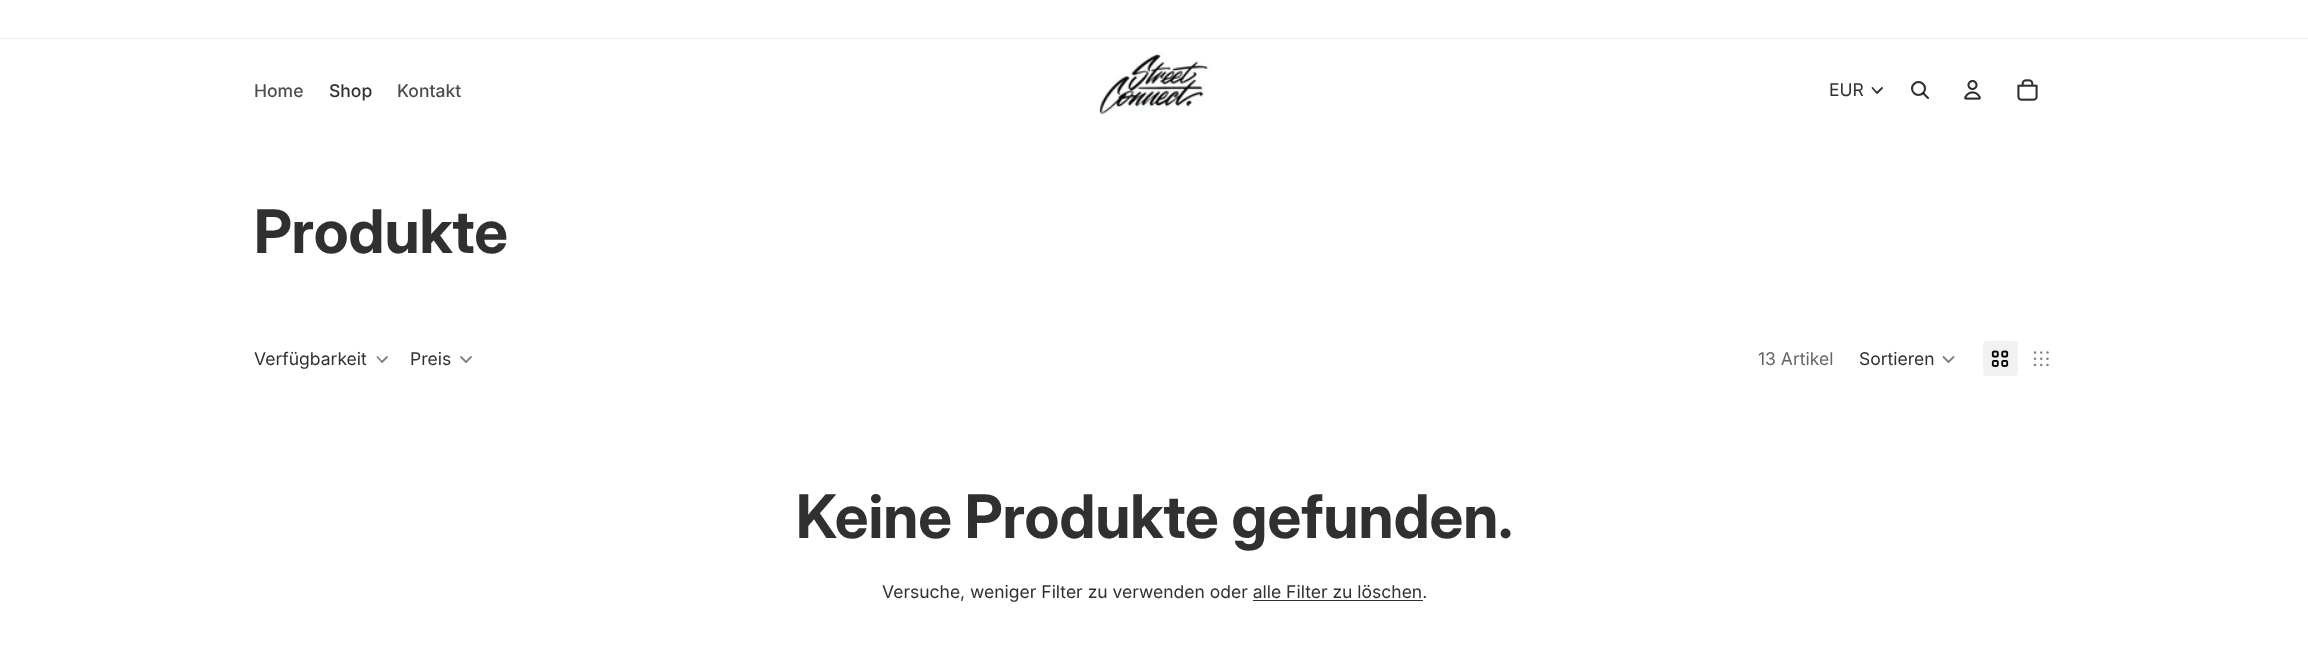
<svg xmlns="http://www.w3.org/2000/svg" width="2308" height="669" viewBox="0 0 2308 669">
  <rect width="100%" height="100%" fill="rgb(255,255,255)"/>
  <rect x="0" y="38" width="2308" height="1" fill="rgb(240,240,240)"/>
  <text x="254" y="97" font-family="Inter" font-size="17.5" font-weight="500" fill="rgb(77,77,77)">Home</text>
  <text x="329" y="97" font-family="Inter" font-size="17.5" font-weight="500" fill="rgb(48,48,48)">Shop</text>
  <text x="397" y="97" font-family="Inter" font-size="17.5" font-weight="500" fill="rgb(77,77,77)">Kontakt</text>
  <image x="1099" y="53" width="112" height="62" href="pic1.png"/>
  <text x="1829" y="96" font-family="Inter" font-size="17.5" fill="rgb(48,48,48)">EUR</text>
  <path d="M1882 88L1877 93L1872.5 88" fill="none" stroke="rgb(48,48,48)" stroke-width="1.8" stroke-linecap="round" stroke-linejoin="round"/>
  <circle cx="1918.5" cy="88.5" r="6.5" fill="none" stroke="rgb(48,48,48)" stroke-width="2.1"/>
  <path d="M1923.5 93.5L1928 98" fill="none" stroke="rgba(0,0,0,0.81)" stroke-width="2.1" stroke-linecap="round" stroke-linejoin="round"/>
  <image x="1964" y="80" width="17" height="20" href="pic2.png"/>
  <image x="2017" y="79" width="21" height="22" href="pic3.png"/>
  <text x="254" y="253" font-family="Inter" font-size="60" font-weight="bold" fill="rgb(48,48,48)">Produkte</text>
  <text x="254" y="365" font-family="Inter" font-size="17.5" fill="rgb(48,48,48)">Verfügbarkeit</text>
  <path d="M387 357L382 362L377.5 357" fill="none" stroke="rgb(128,128,128)" stroke-width="1.8" stroke-linecap="round" stroke-linejoin="round"/>
  <text x="410" y="365" font-family="Inter" font-size="17.5" fill="rgb(48,48,48)">Preis</text>
  <path d="M471 357L466 362L461 357" fill="none" stroke="rgb(128,128,128)" stroke-width="1.8" stroke-linecap="round" stroke-linejoin="round"/>
  <text x="1758" y="365" font-family="Inter" font-size="17.5" fill="rgb(102,102,102)">13 Artikel</text>
  <text x="1859" y="365" font-family="Inter" font-size="17.5" fill="rgb(48,48,48)">Sortieren</text>
  <path d="M1953.5 357L1948.5 362L1943.5 357" fill="none" stroke="rgb(128,128,128)" stroke-width="1.8" stroke-linecap="round" stroke-linejoin="round"/>
  <rect x="1983" y="341" width="35" height="35" rx="4" fill="rgb(242,242,242)"/>
  <image x="1991" y="350" width="18" height="17" href="pic4.png"/>
  <image x="2033" y="351" width="16" height="16" href="pic5.png"/>
  <text x="796" y="538" font-family="Inter" font-size="60" font-weight="bold" fill="rgb(48,48,48)">Keine Produkte gefunden.</text>
  <text x="882" y="598" font-family="Inter" font-size="17.5" fill="rgb(48,48,48)">Versuche, weniger Filter zu verwenden oder alle Filter zu löschen.</text>
  <rect x="1253" y="600" width="170" height="1" fill="rgb(48,48,48)"/>
</svg>
